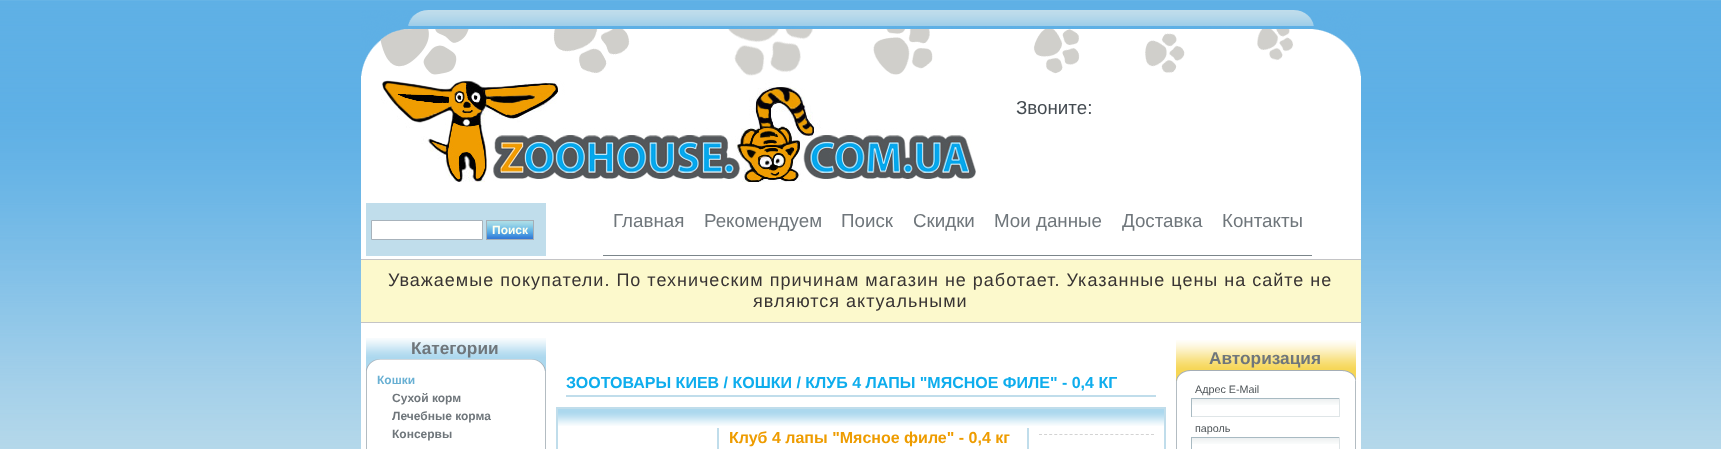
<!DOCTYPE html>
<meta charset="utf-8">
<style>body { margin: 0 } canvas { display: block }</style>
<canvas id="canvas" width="1721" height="449"></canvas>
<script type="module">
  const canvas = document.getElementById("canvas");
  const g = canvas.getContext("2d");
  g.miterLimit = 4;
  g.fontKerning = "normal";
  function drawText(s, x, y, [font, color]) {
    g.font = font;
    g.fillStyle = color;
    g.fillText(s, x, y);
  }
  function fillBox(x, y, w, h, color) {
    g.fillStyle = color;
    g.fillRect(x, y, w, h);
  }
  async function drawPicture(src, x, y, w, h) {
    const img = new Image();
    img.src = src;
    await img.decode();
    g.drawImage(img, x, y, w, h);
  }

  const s1 = ["18.75px Liberation Sans", "#444B51"];
  const s2 = ["bold 12px Liberation Sans", "#FFFFF0"];
  const s3 = ["18.75px Liberation Sans", "#6F767B"];
  const s4 = ["18px Liberation Sans", "#383433"];
  const s5 = ["bold 17.25px Liberation Sans", "#6F767B"];
  const s6 = ["bold 12px Liberation Sans", "#69B0D3"];
  const s7 = ["bold 12px Liberation Sans", "#6F767B"];
  const s8 = ["bold 16px Liberation Sans", "#0EADED"];
  const s9 = ["bold 16px Liberation Sans", "#EE9C00"];
  const s10 = ["10.75px Liberation Sans", "#4F5559"];

  fillBox(0, 0, 1721, 449, "#FFFFFF");
  await drawPicture("pic1.png", 0, 0, 1721, 449);
  fillBox(361, 76, 1000, 373, "#FFFFFF");
  await drawPicture("pic2.png", 361, 10, 1000, 66);
  await drawPicture("pic3.png", 381, 80, 595, 102);
  drawText("Звоните:", 1016, 114, s1);
  fillBox(366, 203, 180, 53, "#C0DDEB");
  g.fillStyle = "#FFFFFF";
  g.beginPath();
  g.rect(371.5, 220.5, 111, 19);
  g.fill();
  g.strokeStyle = "#A7B2BB";
  g.stroke();
  await drawPicture("pic4.png", 487, 221, 46, 18);
  g.strokeStyle = "#A5AEB6";
  g.strokeRect(486.5, 220.5, 47, 19);
  drawText("Поиск", 492, 234, s2);
  fillBox(603, 255, 709, 1, "#7B858A");
  drawText("Главная", 613, 227, s3);
  drawText("Рекомендуем", 704, 227, s3);
  drawText("Поиск", 841, 227, s3);
  drawText("Скидки", 913, 227, s3);
  drawText("Мои данные", 994, 227, s3);
  drawText("Доставка", 1122, 227, s3);
  drawText("Контакты", 1222, 227, s3);
  fillBox(361, 260, 1000, 62, "#FCF9CC");
  fillBox(361, 259, 1000, 1, "#C4C4C6");
  fillBox(361, 322, 1000, 1, "#C4C4C6");
  g.letterSpacing = "1px";
  drawText("Уважаемые покупатели. По техническим причинам магазин не работает. Указанные цены на сайте не", 388, 286, s4);
  drawText("являются актуальными", 753, 307, s4);
  await drawPicture("pic5.png", 366, 338, 180, 33);
  g.letterSpacing = "0px";
  drawText("Категории", 411, 354, s5);
  fillBox(545, 371, 1, 78, "#B3BCC2");
  fillBox(366, 371, 1, 78, "#B3BCC2");
  drawText("Кошки", 377, 384, s6);
  drawText("Сухой корм", 392, 402, s7);
  drawText("Лечебные корма", 392, 420, s7);
  drawText("Консервы", 392, 438, s7);
  fillBox(566, 395, 590, 2, "#C0DDEB");
  drawText("ЗООТОВАРЫ КИЕВ / КОШКИ / КЛУБ 4 ЛАПЫ \"МЯСНОЕ ФИЛЕ\" - 0,4 КГ", 566, 388, s8);
  await drawPicture("pic6.png", 558, 409, 606, 17);
  g.strokeStyle = "#C0DDEB";
  g.lineWidth = 2;
  g.strokeRect(557, 408, 608, 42);
  fillBox(1027, 428, 2, 21, "#C0DDEB");
  fillBox(717, 428, 2, 21, "#C0DDEB");
  drawText("Клуб 4 лапы \"Мясное филе\" - 0,4 кг", 729, 443, s9);
  g.beginPath();
  g.moveTo(1039, 434.5);
  g.lineTo(1154, 434.5);
  g.strokeStyle = "#D3D3D3";
  g.lineWidth = 1;
  g.setLineDash([3, 2.09]);
  g.stroke();
  await drawPicture("pic7.png", 1176, 340, 180, 41);
  drawText("Авторизация", 1209, 364, s5);
  fillBox(1355, 381, 1, 68, "#B3BCC2");
  fillBox(1176, 381, 1, 68, "#B3BCC2");
  drawText("Адрес E-Mail", 1195, 393, s10);
  await drawPicture("pic8.png", 1192, 399, 147, 6);
  fillBox(1191, 398, 149, 1, "#A8BAC2");
  fillBox(1339, 398, 1, 19, "#DFE5E7");
  fillBox(1191, 416, 149, 1, "#DFE5E7");
  fillBox(1191, 398, 1, 19, "#A8BAC2");
  drawText("пароль", 1195, 432, s10);
  await drawPicture("pic8.png", 1192, 438, 147, 6);
  fillBox(1191, 437, 149, 1, "#A8BAC2");
  fillBox(1339, 437, 1, 12, "#DFE5E7");
  fillBox(1191, 437, 1, 12, "#A8BAC2");
</script>
